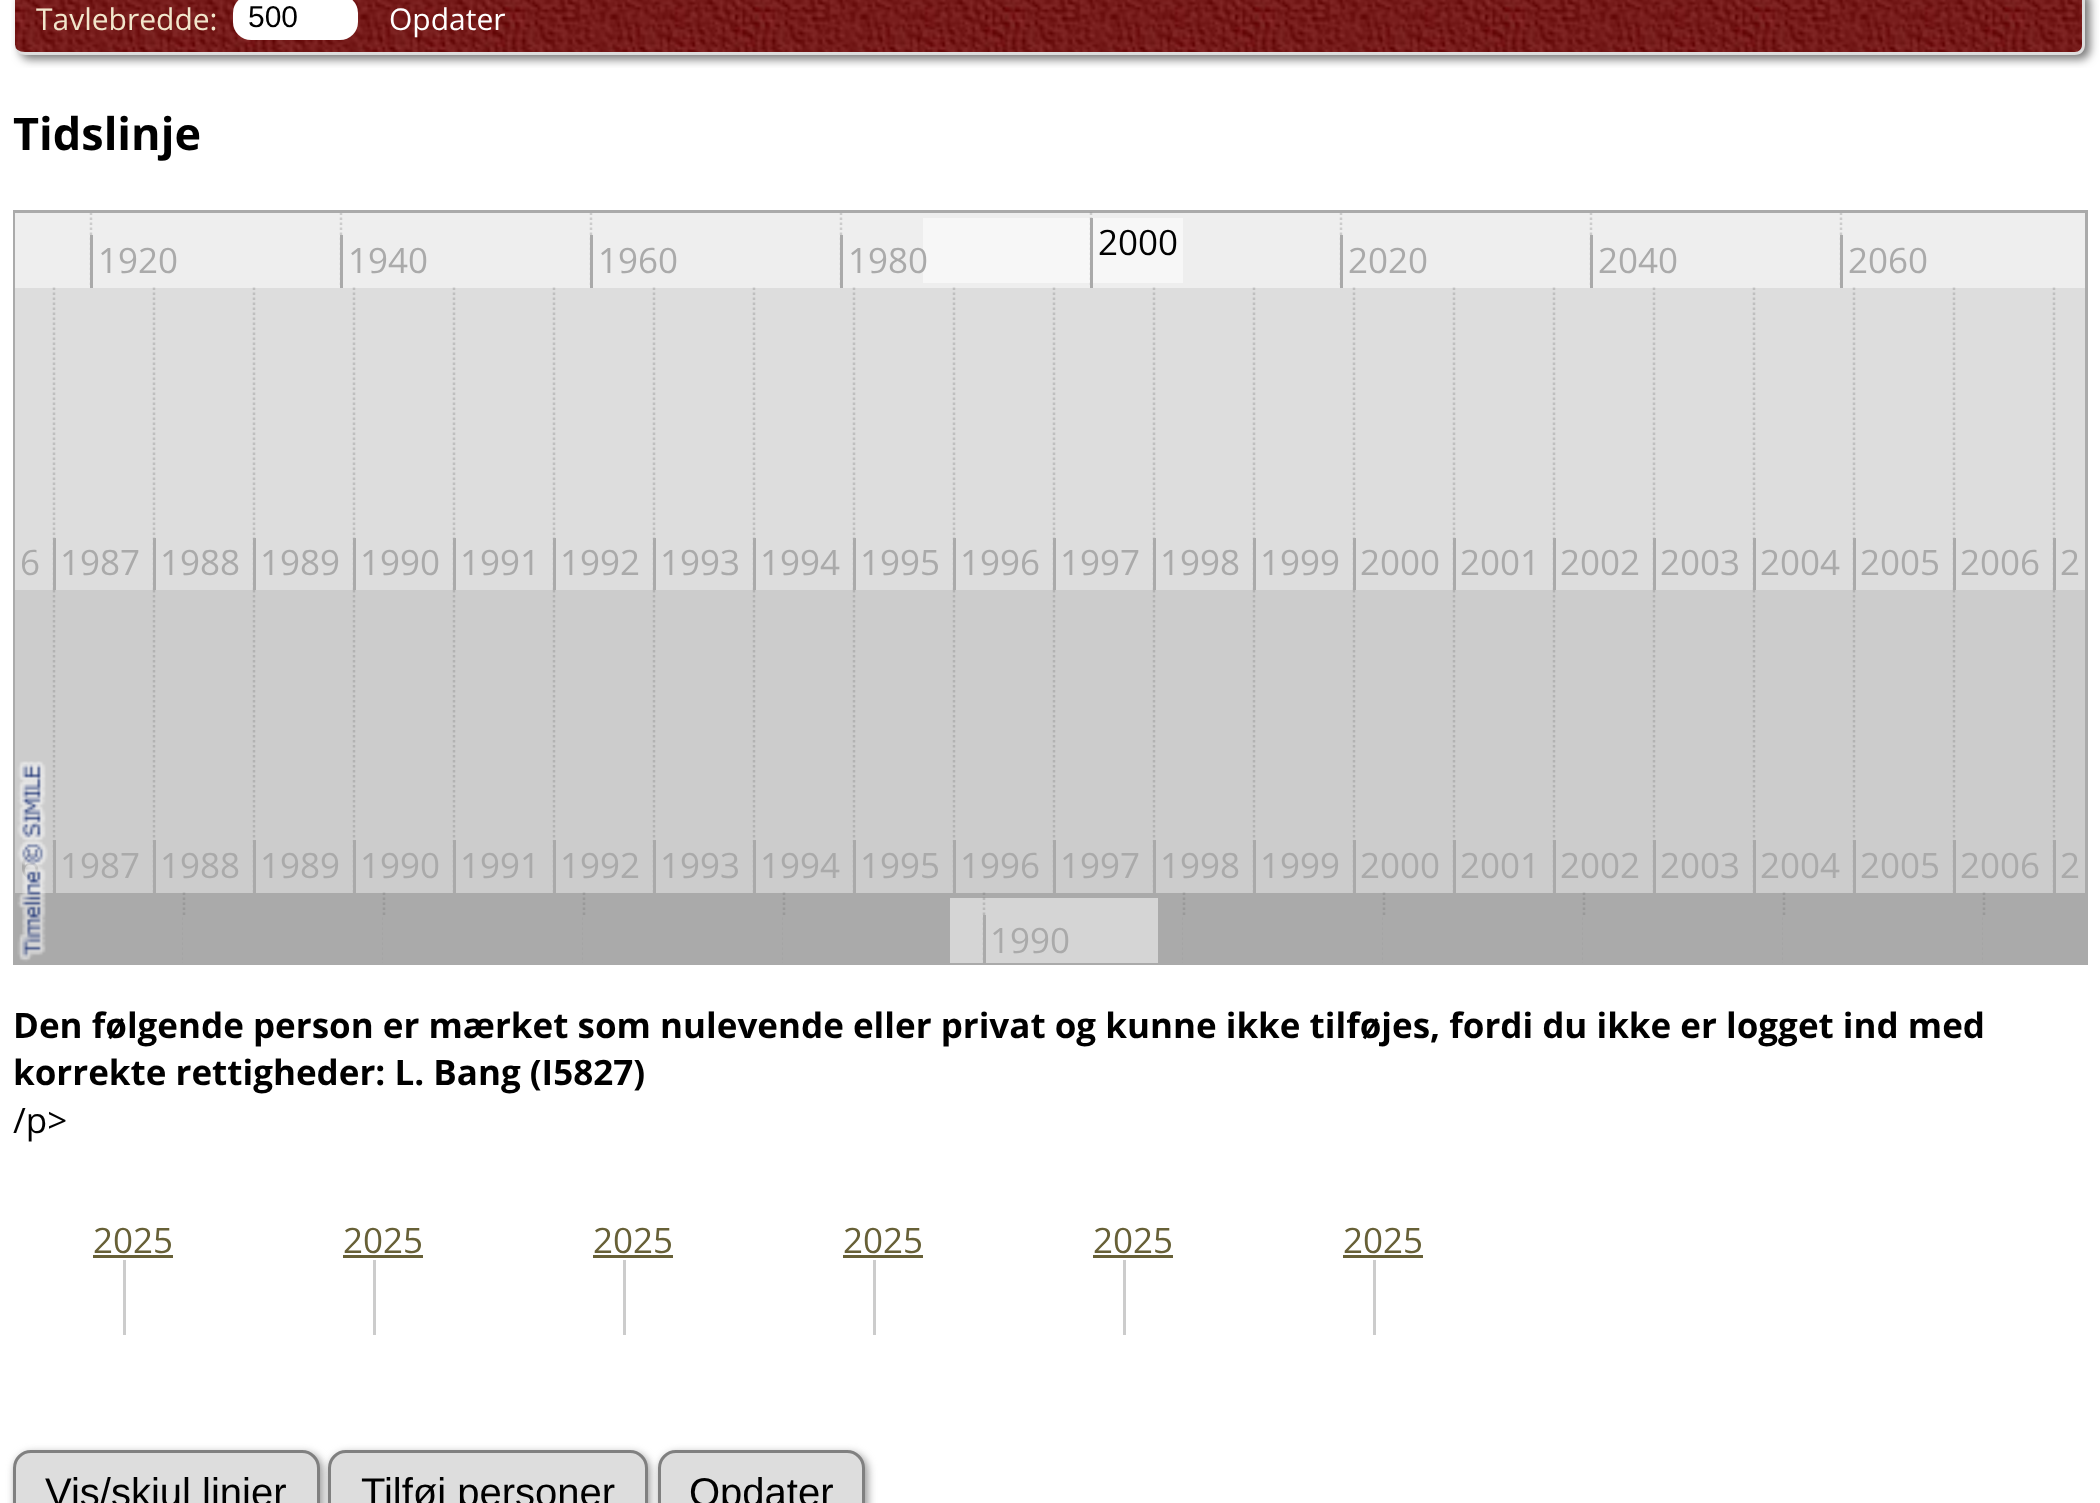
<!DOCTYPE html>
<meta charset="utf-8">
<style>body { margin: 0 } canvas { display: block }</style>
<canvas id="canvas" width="2100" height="1503"></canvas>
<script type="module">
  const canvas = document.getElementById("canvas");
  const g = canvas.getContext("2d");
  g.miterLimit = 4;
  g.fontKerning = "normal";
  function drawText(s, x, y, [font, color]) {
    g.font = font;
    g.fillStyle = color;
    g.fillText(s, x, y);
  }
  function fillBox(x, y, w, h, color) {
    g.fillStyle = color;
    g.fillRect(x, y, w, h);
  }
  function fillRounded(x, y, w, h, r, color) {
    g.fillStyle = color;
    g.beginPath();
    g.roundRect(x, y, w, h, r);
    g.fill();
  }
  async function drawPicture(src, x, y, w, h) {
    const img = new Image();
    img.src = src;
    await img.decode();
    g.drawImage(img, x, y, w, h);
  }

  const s1 = ["30px Open Sans", "#F2E6CC"];
  const s2 = ["30px Liberation Sans", "#000000"];
  const s3 = ["30px Open Sans", "#FFFFFF"];
  const s4 = ["bold 45px Open Sans", "#000000"];
  const s5 = ["35px Open Sans", "#000000"];
  const s6 = ["35px Open Sans", "#AAAAAA"];
  const s7 = ["bold 35px Open Sans", "#000000"];
  const s8 = ["35px Open Sans", "#676037"];
  const s9 = ["40px Liberation Sans", "#000000"];

  fillBox(0, 0, 2100, 1503, "#FFFFFF");
  await drawPicture("pic1.png", 11, 0, 2088, 68);
  g.fillStyle = "#DDDDDD";
  g.beginPath();
  g.moveTo(25, -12);
  g.lineTo(2075, -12);
  g.bezierCurveTo(2081, -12, 2085, -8, 2085, -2);
  g.lineTo(2085, 45);
  g.bezierCurveTo(2085, 51, 2081, 55, 2075, 55);
  g.lineTo(25, 55);
  g.bezierCurveTo(19, 55, 15, 51, 15, 45);
  g.lineTo(15, -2);
  g.bezierCurveTo(15, -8, 19, -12, 25, -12);
  g.closePath();
  g.moveTo(25, -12);
  g.lineTo(2075, -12);
  g.bezierCurveTo(2079, -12, 2082, -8, 2082, -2);
  g.lineTo(2082, 45);
  g.bezierCurveTo(2082, 49, 2079, 52, 2075, 52);
  g.lineTo(25, 52);
  g.bezierCurveTo(19, 52, 15, 49, 15, 45);
  g.lineTo(15, -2);
  g.bezierCurveTo(15, -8, 19, -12, 25, -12);
  g.closePath();
  g.fill("evenodd");
  drawText("Tavlebredde:", 36, 30, s1);
  fillRounded(233, -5, 125, 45, 18, "#FFFFFF");
  drawText("500", 248, 27, s2);
  drawText("Opdater", 389, 30, s3);
  drawText("Tidslinje", 13, 150, s4);
  g.strokeStyle = "#AAAAAA";
  g.lineWidth = 3;
  g.strokeRect(14.5, 211.5, 2072, 752);
  fillBox(15, 213, 2070, 75, "#EEEEEE");
  g.save();
  g.beginPath();
  g.rect(15, 213, 2070, 750);
  g.clip();
  g.beginPath();
  g.moveTo(91, 212.5);
  g.lineTo(91, 287.5);
  g.strokeStyle = "#CCCCCC";
  g.lineWidth = 2.5;
  g.setLineDash([2.5, 2.5]);
  g.stroke();
  g.beginPath();
  g.moveTo(341, 212.5);
  g.lineTo(341, 287.5);
  g.stroke();
  g.beginPath();
  g.moveTo(591, 212.5);
  g.lineTo(591, 287.5);
  g.stroke();
  g.beginPath();
  g.moveTo(841, 212.5);
  g.lineTo(841, 287.5);
  g.stroke();
  g.restore();
  fillBox(923, 218, 260, 65, "#F7F7F7");
  g.beginPath();
  g.moveTo(1091, 212.5);
  g.lineTo(1091, 287.5);
  g.strokeStyle = "rgba(102, 102, 102, 0.25)";
  g.lineWidth = 2.5;
  g.setLineDash([2.5, 2.5]);
  g.stroke();
  g.save();
  g.beginPath();
  g.rect(15, 213, 2070, 750);
  g.clip();
  g.beginPath();
  g.moveTo(1341, 212.5);
  g.lineTo(1341, 287.5);
  g.strokeStyle = "#CCCCCC";
  g.stroke();
  g.beginPath();
  g.moveTo(1591, 212.5);
  g.lineTo(1591, 287.5);
  g.stroke();
  g.beginPath();
  g.moveTo(1841, 212.5);
  g.lineTo(1841, 287.5);
  g.stroke();
  g.restore();
  fillBox(1090, 218, 3, 70, "#AAAAAA");
  drawText("2000", 1098, 255, s5);
  fillBox(90, 235, 3, 53, "#AAAAAA");
  drawText("1920", 98, 273, s6);
  fillBox(340, 235, 3, 53, "#AAAAAA");
  drawText("1940", 348, 273, s6);
  fillBox(590, 235, 3, 53, "#AAAAAA");
  drawText("1960", 598, 273, s6);
  fillBox(840, 235, 3, 53, "#AAAAAA");
  drawText("1980", 848, 273, s6);
  fillBox(1340, 235, 3, 53, "#AAAAAA");
  drawText("2020", 1348, 273, s6);
  fillBox(1590, 235, 3, 53, "#AAAAAA");
  drawText("2040", 1598, 273, s6);
  fillBox(1840, 235, 3, 53, "#AAAAAA");
  drawText("2060", 1848, 273, s6);
  fillBox(15, 288, 2070, 302, "#DDDDDD");
  g.beginPath();
  g.moveTo(54, 287.5);
  g.lineTo(54, 590);
  g.stroke();
  g.beginPath();
  g.moveTo(154, 287.5);
  g.lineTo(154, 590);
  g.stroke();
  g.beginPath();
  g.moveTo(254, 287.5);
  g.lineTo(254, 590);
  g.stroke();
  g.beginPath();
  g.moveTo(354, 287.5);
  g.lineTo(354, 590);
  g.stroke();
  g.beginPath();
  g.moveTo(454, 287.5);
  g.lineTo(454, 590);
  g.stroke();
  g.beginPath();
  g.moveTo(554, 287.5);
  g.lineTo(554, 590);
  g.stroke();
  g.beginPath();
  g.moveTo(654, 287.5);
  g.lineTo(654, 590);
  g.stroke();
  g.beginPath();
  g.moveTo(754, 287.5);
  g.lineTo(754, 590);
  g.stroke();
  g.beginPath();
  g.moveTo(854, 287.5);
  g.lineTo(854, 590);
  g.stroke();
  g.beginPath();
  g.moveTo(954, 287.5);
  g.lineTo(954, 590);
  g.stroke();
  g.beginPath();
  g.moveTo(1054, 287.5);
  g.lineTo(1054, 590);
  g.stroke();
  g.beginPath();
  g.moveTo(1154, 287.5);
  g.lineTo(1154, 590);
  g.stroke();
  g.beginPath();
  g.moveTo(1254, 287.5);
  g.lineTo(1254, 590);
  g.stroke();
  g.beginPath();
  g.moveTo(1354, 287.5);
  g.lineTo(1354, 590);
  g.stroke();
  g.beginPath();
  g.moveTo(1454, 287.5);
  g.lineTo(1454, 590);
  g.stroke();
  g.beginPath();
  g.moveTo(1554, 287.5);
  g.lineTo(1554, 590);
  g.stroke();
  g.beginPath();
  g.moveTo(1654, 287.5);
  g.lineTo(1654, 590);
  g.stroke();
  g.beginPath();
  g.moveTo(1754, 287.5);
  g.lineTo(1754, 590);
  g.stroke();
  g.beginPath();
  g.moveTo(1854, 287.5);
  g.lineTo(1854, 590);
  g.stroke();
  g.beginPath();
  g.moveTo(1954, 287.5);
  g.lineTo(1954, 590);
  g.stroke();
  g.beginPath();
  g.moveTo(2054, 287.5);
  g.lineTo(2054, 590);
  g.stroke();
  drawText("6", 20, 575, s6);
  fillBox(53, 538, 3, 52, "#AAAAAA");
  drawText("1987", 60, 575, s6);
  fillBox(153, 538, 3, 52, "#AAAAAA");
  drawText("1988", 160, 575, s6);
  fillBox(253, 538, 3, 52, "#AAAAAA");
  drawText("1989", 260, 575, s6);
  fillBox(353, 538, 3, 52, "#AAAAAA");
  drawText("1990", 360, 575, s6);
  fillBox(453, 538, 3, 52, "#AAAAAA");
  drawText("1991", 460, 575, s6);
  fillBox(553, 538, 3, 52, "#AAAAAA");
  drawText("1992", 560, 575, s6);
  fillBox(653, 538, 3, 52, "#AAAAAA");
  drawText("1993", 660, 575, s6);
  fillBox(753, 538, 3, 52, "#AAAAAA");
  drawText("1994", 760, 575, s6);
  fillBox(853, 538, 3, 52, "#AAAAAA");
  drawText("1995", 860, 575, s6);
  fillBox(953, 538, 3, 52, "#AAAAAA");
  drawText("1996", 960, 575, s6);
  fillBox(1053, 538, 3, 52, "#AAAAAA");
  drawText("1997", 1060, 575, s6);
  fillBox(1153, 538, 3, 52, "#AAAAAA");
  drawText("1998", 1160, 575, s6);
  fillBox(1253, 538, 3, 52, "#AAAAAA");
  drawText("1999", 1260, 575, s6);
  fillBox(1353, 538, 3, 52, "#AAAAAA");
  drawText("2000", 1360, 575, s6);
  fillBox(1453, 538, 3, 52, "#AAAAAA");
  drawText("2001", 1460, 575, s6);
  fillBox(1553, 538, 3, 52, "#AAAAAA");
  drawText("2002", 1560, 575, s6);
  fillBox(1653, 538, 3, 52, "#AAAAAA");
  drawText("2003", 1660, 575, s6);
  fillBox(1753, 538, 3, 52, "#AAAAAA");
  drawText("2004", 1760, 575, s6);
  fillBox(1853, 538, 3, 52, "#AAAAAA");
  drawText("2005", 1860, 575, s6);
  fillBox(1953, 538, 3, 52, "#AAAAAA");
  drawText("2006", 1960, 575, s6);
  fillBox(2053, 538, 3, 52, "#AAAAAA");
  drawText("2", 2060, 575, s6);
  fillBox(15, 590, 2070, 303, "#CCCCCC");
  drawText("6", 20, 878, s6);
  fillBox(16, 893, 2069, 69, "#AAAAAA");
  await drawPicture("pic2.png", 17, 761, 31, 201);
  g.beginPath();
  g.moveTo(54, 590);
  g.lineTo(54, 892.5);
  g.strokeStyle = "#B3B3B3";
  g.stroke();
  g.beginPath();
  g.moveTo(154, 590);
  g.lineTo(154, 892.5);
  g.stroke();
  g.beginPath();
  g.moveTo(254, 590);
  g.lineTo(254, 892.5);
  g.stroke();
  g.beginPath();
  g.moveTo(354, 590);
  g.lineTo(354, 892.5);
  g.stroke();
  g.beginPath();
  g.moveTo(454, 590);
  g.lineTo(454, 892.5);
  g.stroke();
  g.beginPath();
  g.moveTo(554, 590);
  g.lineTo(554, 892.5);
  g.stroke();
  g.beginPath();
  g.moveTo(654, 590);
  g.lineTo(654, 892.5);
  g.stroke();
  g.beginPath();
  g.moveTo(754, 590);
  g.lineTo(754, 892.5);
  g.stroke();
  g.beginPath();
  g.moveTo(854, 590);
  g.lineTo(854, 892.5);
  g.stroke();
  g.beginPath();
  g.moveTo(954, 590);
  g.lineTo(954, 892.5);
  g.stroke();
  g.beginPath();
  g.moveTo(1054, 590);
  g.lineTo(1054, 892.5);
  g.stroke();
  g.beginPath();
  g.moveTo(1154, 590);
  g.lineTo(1154, 892.5);
  g.stroke();
  g.beginPath();
  g.moveTo(1254, 590);
  g.lineTo(1254, 892.5);
  g.stroke();
  g.beginPath();
  g.moveTo(1354, 590);
  g.lineTo(1354, 892.5);
  g.stroke();
  g.beginPath();
  g.moveTo(1454, 590);
  g.lineTo(1454, 892.5);
  g.stroke();
  g.beginPath();
  g.moveTo(1554, 590);
  g.lineTo(1554, 892.5);
  g.stroke();
  g.beginPath();
  g.moveTo(1654, 590);
  g.lineTo(1654, 892.5);
  g.stroke();
  g.beginPath();
  g.moveTo(1754, 590);
  g.lineTo(1754, 892.5);
  g.stroke();
  g.beginPath();
  g.moveTo(1854, 590);
  g.lineTo(1854, 892.5);
  g.stroke();
  g.beginPath();
  g.moveTo(1954, 590);
  g.lineTo(1954, 892.5);
  g.stroke();
  g.beginPath();
  g.moveTo(2054, 590);
  g.lineTo(2054, 892.5);
  g.stroke();
  fillBox(53, 840, 3, 53, "#AAAAAA");
  drawText("1987", 60, 878, s6);
  fillBox(153, 840, 3, 53, "#AAAAAA");
  drawText("1988", 160, 878, s6);
  fillBox(253, 840, 3, 53, "#AAAAAA");
  drawText("1989", 260, 878, s6);
  fillBox(353, 840, 3, 53, "#AAAAAA");
  drawText("1990", 360, 878, s6);
  fillBox(453, 840, 3, 53, "#AAAAAA");
  drawText("1991", 460, 878, s6);
  fillBox(553, 840, 3, 53, "#AAAAAA");
  drawText("1992", 560, 878, s6);
  fillBox(653, 840, 3, 53, "#AAAAAA");
  drawText("1993", 660, 878, s6);
  fillBox(753, 840, 3, 53, "#AAAAAA");
  drawText("1994", 760, 878, s6);
  fillBox(853, 840, 3, 53, "#AAAAAA");
  drawText("1995", 860, 878, s6);
  fillBox(953, 840, 3, 53, "#AAAAAA");
  drawText("1996", 960, 878, s6);
  fillBox(1053, 840, 3, 53, "#AAAAAA");
  drawText("1997", 1060, 878, s6);
  fillBox(1153, 840, 3, 53, "#AAAAAA");
  drawText("1998", 1160, 878, s6);
  fillBox(1253, 840, 3, 53, "#AAAAAA");
  drawText("1999", 1260, 878, s6);
  fillBox(1353, 840, 3, 53, "#AAAAAA");
  drawText("2000", 1360, 878, s6);
  fillBox(1453, 840, 3, 53, "#AAAAAA");
  drawText("2001", 1460, 878, s6);
  fillBox(1553, 840, 3, 53, "#AAAAAA");
  drawText("2002", 1560, 878, s6);
  fillBox(1653, 840, 3, 53, "#AAAAAA");
  drawText("2003", 1660, 878, s6);
  fillBox(1753, 840, 3, 53, "#AAAAAA");
  drawText("2004", 1760, 878, s6);
  fillBox(1853, 840, 3, 53, "#AAAAAA");
  drawText("2005", 1860, 878, s6);
  fillBox(1953, 840, 3, 53, "#AAAAAA");
  drawText("2006", 1960, 878, s6);
  fillBox(2053, 840, 3, 53, "#AAAAAA");
  drawText("2", 2060, 878, s6);
  g.save();
  g.beginPath();
  g.rect(15, 213, 2070, 750);
  g.clip();
  g.beginPath();
  g.moveTo(184, 892.5);
  g.lineTo(184, 967.5);
  g.strokeStyle = "rgba(102, 102, 102, 0.25)";
  g.stroke();
  g.beginPath();
  g.moveTo(384, 892.5);
  g.lineTo(384, 967.5);
  g.stroke();
  g.beginPath();
  g.moveTo(584, 892.5);
  g.lineTo(584, 967.5);
  g.stroke();
  g.beginPath();
  g.moveTo(784, 892.5);
  g.lineTo(784, 967.5);
  g.stroke();
  g.restore();
  fillBox(950, 898, 208, 65, "#D5D5D5");
  g.save();
  g.beginPath();
  g.rect(15, 213, 2070, 750);
  g.clip();
  g.beginPath();
  g.moveTo(984, 892.5);
  g.lineTo(984, 967.5);
  g.strokeStyle = "rgba(102, 102, 102, 0.25)";
  g.stroke();
  g.beginPath();
  g.moveTo(1184, 892.5);
  g.lineTo(1184, 967.5);
  g.stroke();
  g.beginPath();
  g.moveTo(1384, 892.5);
  g.lineTo(1384, 967.5);
  g.stroke();
  g.beginPath();
  g.moveTo(1584, 892.5);
  g.lineTo(1584, 967.5);
  g.stroke();
  g.beginPath();
  g.moveTo(1784, 892.5);
  g.lineTo(1784, 967.5);
  g.stroke();
  g.beginPath();
  g.moveTo(1984, 892.5);
  g.lineTo(1984, 967.5);
  g.stroke();
  g.restore();
  fillBox(183, 915, 3, 48, "#AAAAAA");
  fillBox(383, 915, 3, 48, "#AAAAAA");
  fillBox(583, 915, 3, 48, "#AAAAAA");
  fillBox(783, 915, 3, 48, "#AAAAAA");
  fillBox(983, 915, 3, 48, "#AAAAAA");
  drawText("1990", 990, 953, s6);
  fillBox(1183, 915, 3, 48, "#AAAAAA");
  fillBox(1383, 915, 3, 48, "#AAAAAA");
  fillBox(1583, 915, 3, 48, "#AAAAAA");
  fillBox(1783, 915, 3, 48, "#AAAAAA");
  fillBox(1983, 915, 3, 48, "#AAAAAA");
  drawText("Den følgende person er mærket som nulevende eller privat og kunne ikke tilføjes, fordi du ikke er logget ind med", 13, 1038, s7);
  drawText("korrekte rettigheder: L. Bang (I5827)", 13, 1085, s7);
  drawText("/p>", 13, 1133, s5);
  drawText("2025", 93, 1253, s8);
  fillBox(93, 1255, 80, 3, "#676037");
  drawText("2025", 343, 1253, s8);
  fillBox(343, 1255, 80, 3, "#676037");
  drawText("2025", 593, 1253, s8);
  fillBox(593, 1255, 80, 3, "#676037");
  drawText("2025", 843, 1253, s8);
  fillBox(843, 1255, 80, 3, "#676037");
  drawText("2025", 1093, 1253, s8);
  fillBox(1093, 1255, 80, 3, "#676037");
  drawText("2025", 1343, 1253, s8);
  fillBox(1343, 1255, 80, 3, "#676037");
  fillBox(123, 1260, 3, 75, "#CCCCCC");
  fillBox(373, 1260, 3, 75, "#CCCCCC");
  fillBox(623, 1260, 3, 75, "#CCCCCC");
  fillBox(873, 1260, 3, 75, "#CCCCCC");
  fillBox(1123, 1260, 3, 75, "#CCCCCC");
  fillBox(1373, 1260, 3, 75, "#CCCCCC");
  g.fillStyle = "#999999";
  g.filter = "blur(4px)";
  g.beginPath();
  g.roundRect(15, 1453, 308, 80, 18);
  g.fill();
  g.filter = "none";
  g.fillStyle = "#DDDDDD";
  g.beginPath();
  g.roundRect(14.5, 1451.5, 304, 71, 16.5);
  g.fill();
  g.strokeStyle = "#808080";
  g.lineWidth = 3;
  g.setLineDash([]);
  g.stroke();
  drawText("Vis/skjul linjer", 45, 1506, s9);
  g.fillStyle = "#999999";
  g.filter = "blur(4px)";
  g.beginPath();
  g.roundRect(330, 1453, 320, 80, 18);
  g.fill();
  g.filter = "none";
  g.fillStyle = "#DDDDDD";
  g.beginPath();
  g.roundRect(329.5, 1451.5, 317, 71, 16.5);
  g.fill();
  g.stroke();
  drawText("Tilføj personer", 361, 1506, s9);
  g.fillStyle = "#999999";
  g.filter = "blur(4px)";
  g.beginPath();
  g.roundRect(660, 1453, 208, 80, 18);
  g.fill();
  g.filter = "none";
  g.fillStyle = "#DDDDDD";
  g.beginPath();
  g.roundRect(659.5, 1451.5, 204, 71, 16.5);
  g.fill();
  g.stroke();
  drawText("Opdater", 689, 1506, s9);
</script>
